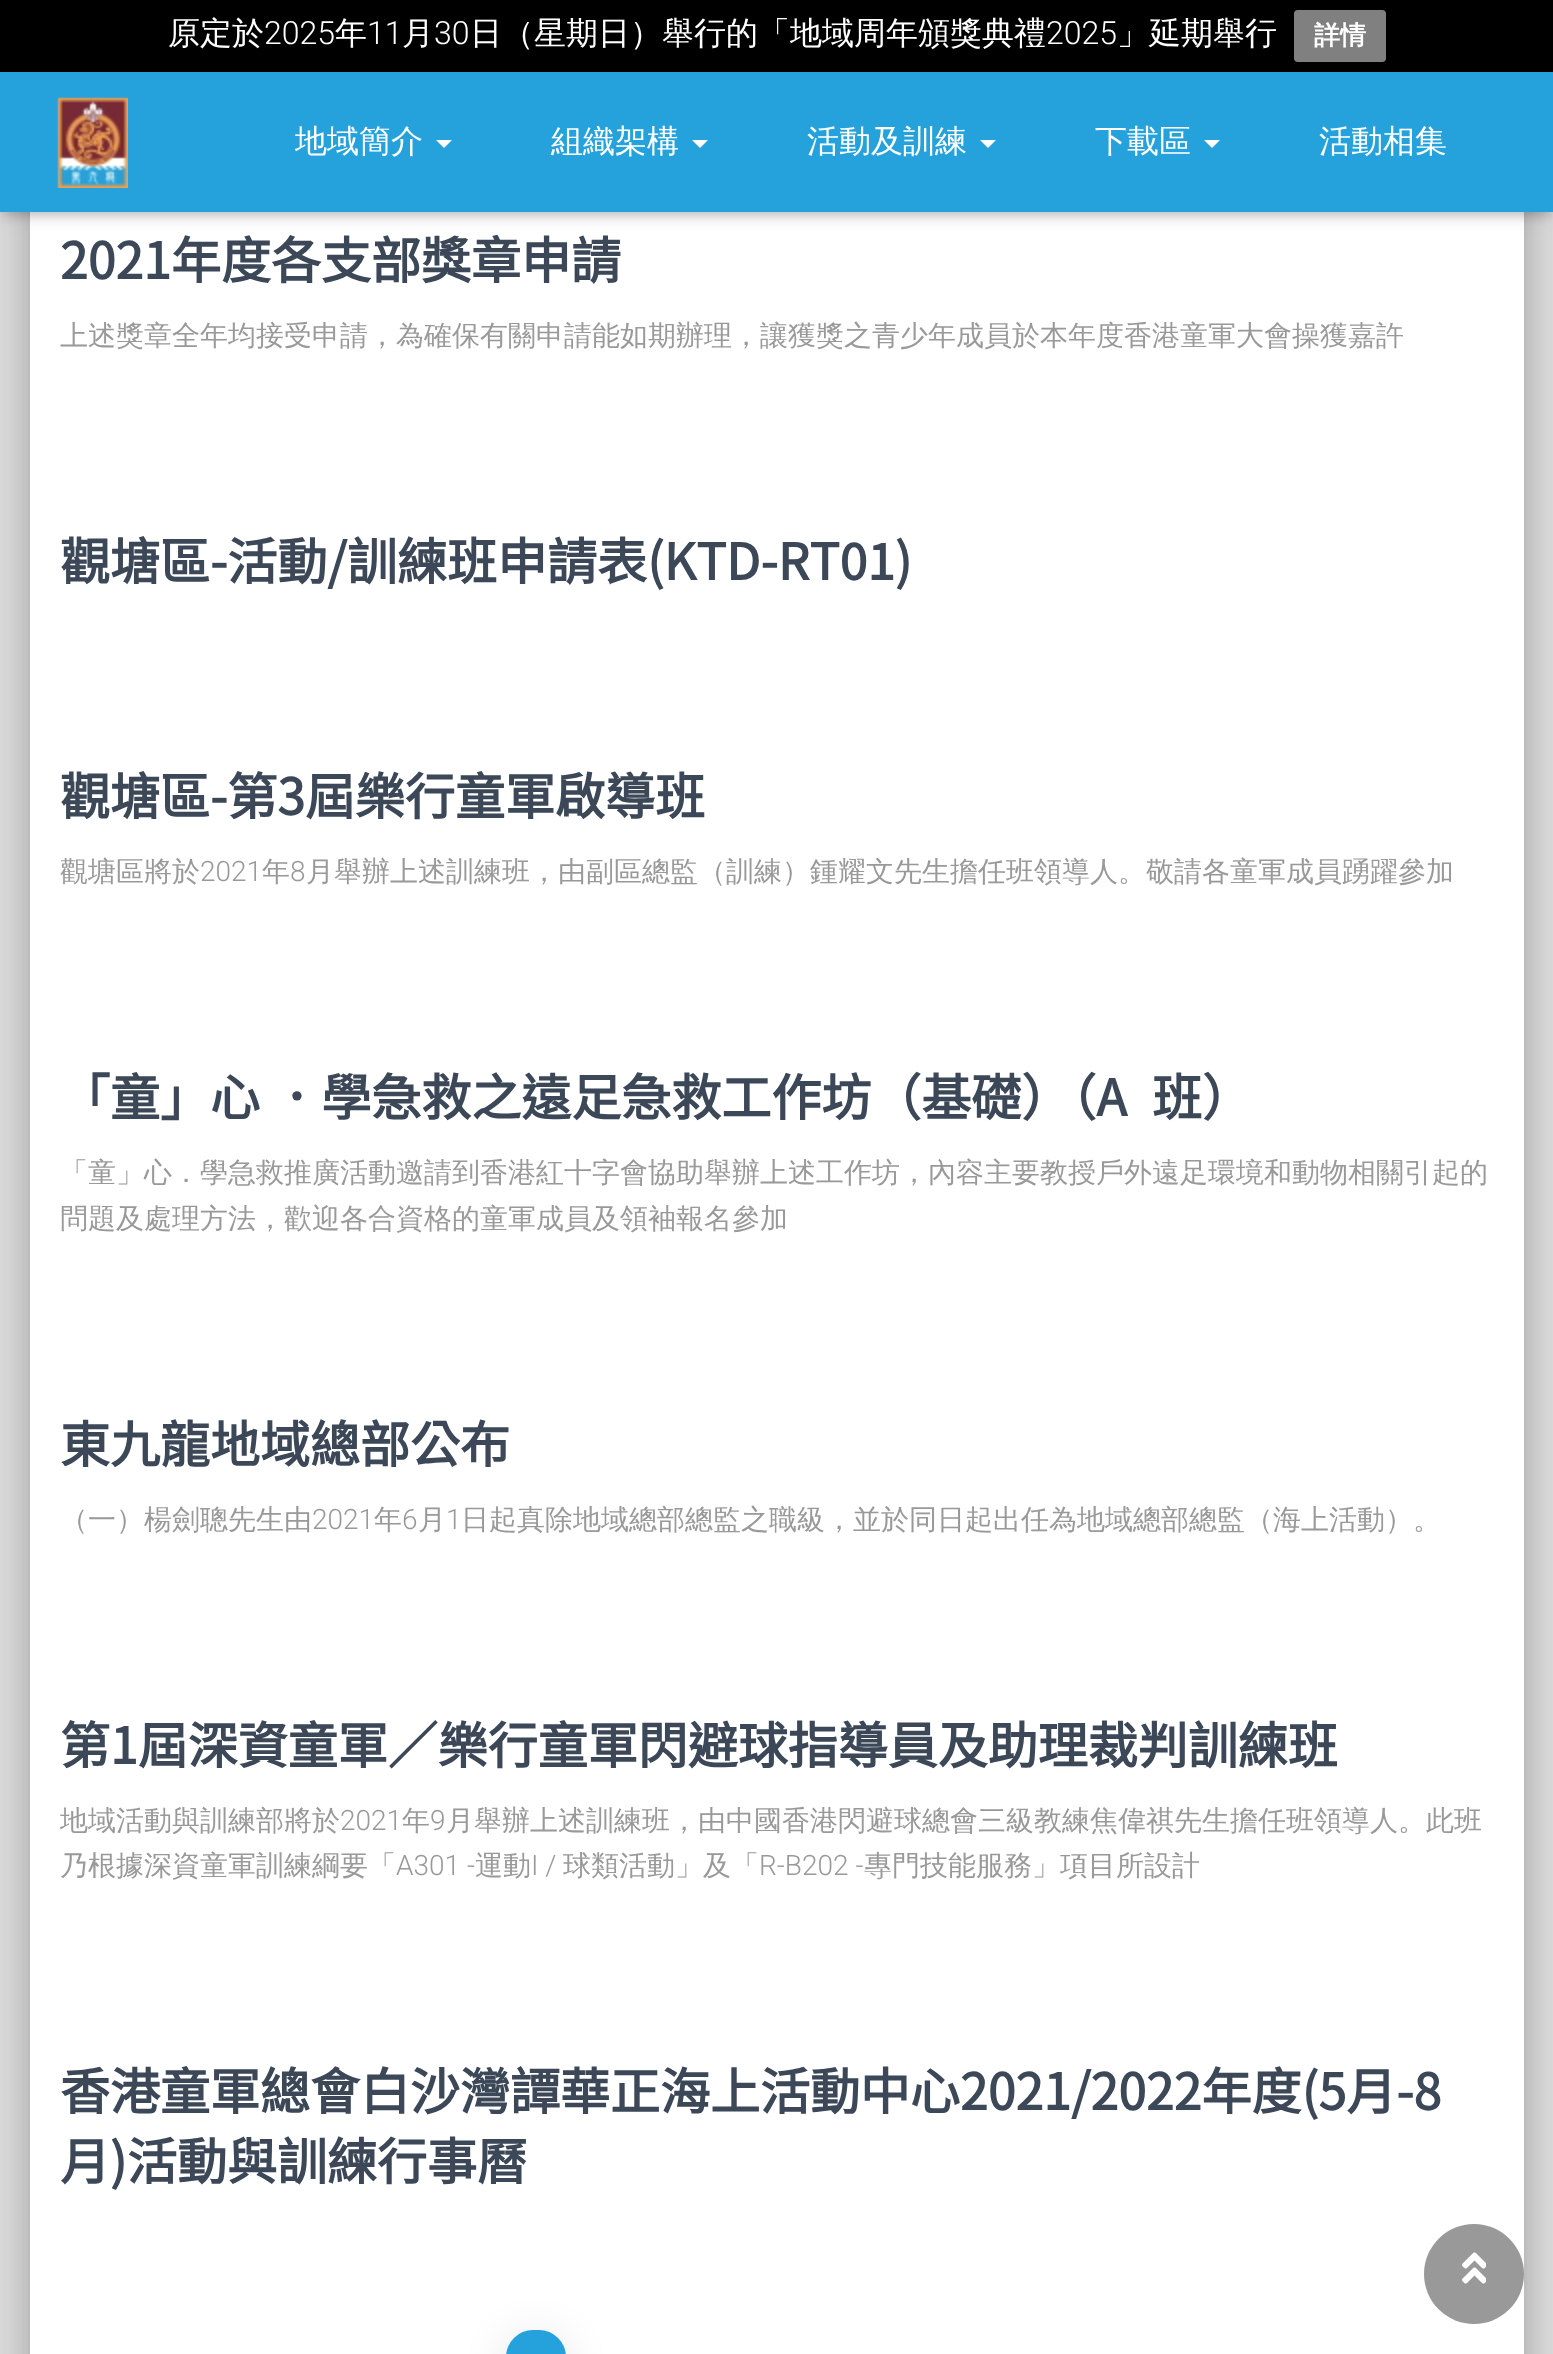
<!DOCTYPE html>
<meta charset="utf-8">
<style>body { margin: 0 } canvas { display: block }</style>
<canvas id="canvas" width="1553" height="2354"></canvas>
<script type="module">
  const canvas = document.getElementById("canvas");
  const g = canvas.getContext("2d");
  g.miterLimit = 4;
  g.fontKerning = "none";
  function drawText(s, x, y, [font, color]) {
    g.font = font;
    g.fillStyle = color;
    g.fillText(s, x, y);
  }
  function fillBox(x, y, w, h, color) {
    g.fillStyle = color;
    g.fillRect(x, y, w, h);
  }
  function fillRounded(x, y, w, h, r, color) {
    g.fillStyle = color;
    g.beginPath();
    g.roundRect(x, y, w, h, r);
    g.fill();
  }
  async function drawPicture(src, x, y, w, h) {
    const img = new Image();
    img.src = src;
    await img.decode();
    g.drawImage(img, x, y, w, h);
  }

  const s1 = ["500 32px WenQuanYi Zen Hei", "#FFFFFF"];
  const s2 = ["300 32px Roboto", "#FFFFFF"];
  const s3 = ["bold 26px WenQuanYi Zen Hei", "#FFFFFF"];
  const s4 = ["bold 50px Noto Sans TC", "#3C4858"];
  const s5 = ["500 28px WenQuanYi Zen Hei", "#999999"];
  const s6 = ["300 28px Roboto", "#999999"];

  fillBox(0, 0, 1553, 2354, "#E5E5E5");
  g.fillStyle = "rgba(0, 0, 0, 0.2)";
  g.filter = "blur(10px)";
  g.beginPath();
  g.roundRect(40, -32, 1474, 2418, 2);
  g.fill();
  g.filter = "none";
  g.fillStyle = "rgba(0, 0, 0, 0.12)";
  g.filter = "blur(30px)";
  g.beginPath();
  g.roundRect(20, -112, 1514, 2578, 22);
  g.fill();
  g.filter = "none";
  g.fillStyle = "rgba(0, 0, 0, 0.14)";
  g.filter = "blur(24px)";
  g.beginPath();
  g.roundRect(26, -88, 1502, 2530, 16);
  g.fill();
  g.filter = "none";
  fillBox(30, 212, 1494, 2142, "#FFFFFF");
  g.fillStyle = "rgba(0, 0, 0, 0.1)";
  g.filter = "blur(5px)";
  g.beginPath();
  g.rect(4, 84, 1546, 132);
  g.fill();
  g.filter = "none";
  g.fillStyle = "rgba(0, 0, 0, 0.12)";
  g.filter = "blur(10px)";
  g.beginPath();
  g.rect(0, 74, 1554, 140);
  g.fill();
  g.filter = "none";
  g.fillStyle = "rgba(0, 0, 0, 0.42)";
  g.filter = "blur(10px)";
  g.beginPath();
  g.rect(12, 86, 1530, 116);
  g.fill();
  g.filter = "none";
  fillBox(0, 0, 1553, 72, "#000000");
  drawText("原定於", 168, 44, s1);
  drawText("2025", 264, 44, s2);
  drawText("年", 335, 44, s1);
  drawText("11", 367, 44, s2);
  drawText("月", 402, 44, s1);
  drawText("30", 434, 44, s2);
  drawText("日（星期日）舉行的「地域周年頒獎典禮", 470, 44, s1);
  drawText("2025", 1046, 44, s2);
  drawText("」延期舉行", 1117, 44, s1);
  fillRounded(1294, 10, 92, 52, 4, "#808080");
  drawText("詳情", 1314, 44, s3);
  fillBox(0, 72, 1553, 140, "#25A2DC");
  await drawPicture("pic1.png", 57, 97, 71, 91);
  drawText("地域簡介", 295, 152, s1);
  g.beginPath();
  g.moveTo(436, 140);
  g.lineTo(452, 140);
  g.lineTo(444, 148);
  g.closePath();
  g.fill();
  drawText("組織架構", 551, 152, s1);
  g.beginPath();
  g.moveTo(692, 140);
  g.lineTo(708, 140);
  g.lineTo(700, 148);
  g.closePath();
  g.fill();
  drawText("活動及訓練", 807, 152, s1);
  g.beginPath();
  g.moveTo(980, 140);
  g.lineTo(996, 140);
  g.lineTo(988, 148);
  g.closePath();
  g.fill();
  drawText("下載區", 1095, 152, s1);
  g.beginPath();
  g.moveTo(1204, 140);
  g.lineTo(1220, 140);
  g.lineTo(1212, 148);
  g.closePath();
  g.fill();
  drawText("活動相集", 1319, 152, s1);
  drawText("2021年度各支部獎章申請", 60, 279, s4);
  drawText("上述獎章全年均接受申請，為確保有關申請能如期辦理，讓獲獎之青少年成員於本年度香港童軍大會操獲嘉許", 60, 345, s5);
  drawText("觀塘區-活動/訓練班申請表(KTD-RT01)", 60, 580, s4);
  drawText("觀塘區-第3屆樂行童軍啟導班", 60, 815, s4);
  drawText("觀塘區將於", 60, 881, s5);
  drawText("2021", 200, 881, s6);
  drawText("年", 262, 881, s5);
  drawText("8", 290, 881, s6);
  drawText("月舉辦上述訓練班，由副區總監（訓練）鍾耀文先生擔任班領導人。敬請各童軍成員踴躍參加", 306, 881, s5);
  drawText("「童」心 ．學急救之遠足急救工作坊（基礎）（A", 60, 1116, s4);
  drawText("班）", 1152, 1116, s4);
  drawText("「童」心．學急救推廣活動邀請到香港紅十字會協助舉辦上述工作坊，內容主要教授戶外遠足環境和動物相關引起的", 60, 1182, s5);
  drawText("問題及處理方法，歡迎各合資格的童軍成員及領袖報名參加", 60, 1228, s5);
  drawText("東九龍地域總部公布", 60, 1463, s4);
  drawText("（一）楊劍聰先生由", 60, 1529, s5);
  drawText("2021", 312, 1529, s6);
  drawText("年", 374, 1529, s5);
  drawText("6", 402, 1529, s6);
  drawText("月", 418, 1529, s5);
  drawText("1", 446, 1529, s6);
  drawText("日起真除地域總部總監之職級，並於同日起出任為地域總部總監（海上活動）。", 461, 1529, s5);
  drawText("第1屆深資童軍／樂行童軍閃避球指導員及助理裁判訓練班", 60, 1764, s4);
  drawText("地域活動與訓練部將於", 60, 1830, s5);
  drawText("2021", 340, 1830, s6);
  drawText("年", 402, 1830, s5);
  drawText("9", 430, 1830, s6);
  drawText("月舉辦上述訓練班，由中國香港閃避球總會三級教練焦偉祺先生擔任班領導人。此班", 446, 1830, s5);
  drawText("乃根據深資童軍訓練綱要「", 60, 1875, s5);
  drawText("A301 -", 396, 1875, s6);
  drawText("運動", 475, 1875, s5);
  drawText("I /", 531, 1875, s6);
  drawText("球類活動」及「", 563, 1875, s5);
  drawText("R-B202 -", 759, 1875, s6);
  drawText("專門技能服務」項目所設計", 864, 1875, s5);
  drawText("香港童軍總會白沙灣譚華正海上活動中心2021/2022年度(5月-8", 60, 2110, s4);
  drawText("月)活動與訓練行事曆", 60, 2180, s4);
  g.fillStyle = "rgba(0, 0, 0, 0.12)";
  g.filter = "blur(23px)";
  g.beginPath();
  g.roundRect(506, 2338, 60, 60, 30);
  g.fill();
  g.filter = "none";
  fillRounded(506, 2330, 60, 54, 30, "#25A2DC");
  g.fillStyle = "#999999";
  g.beginPath();
  g.arc(1474, 2274, 50, 0, Math.PI * 2);
  g.fill();
  await drawPicture("pic2.png", 1462, 2252, 24, 32);
</script>
